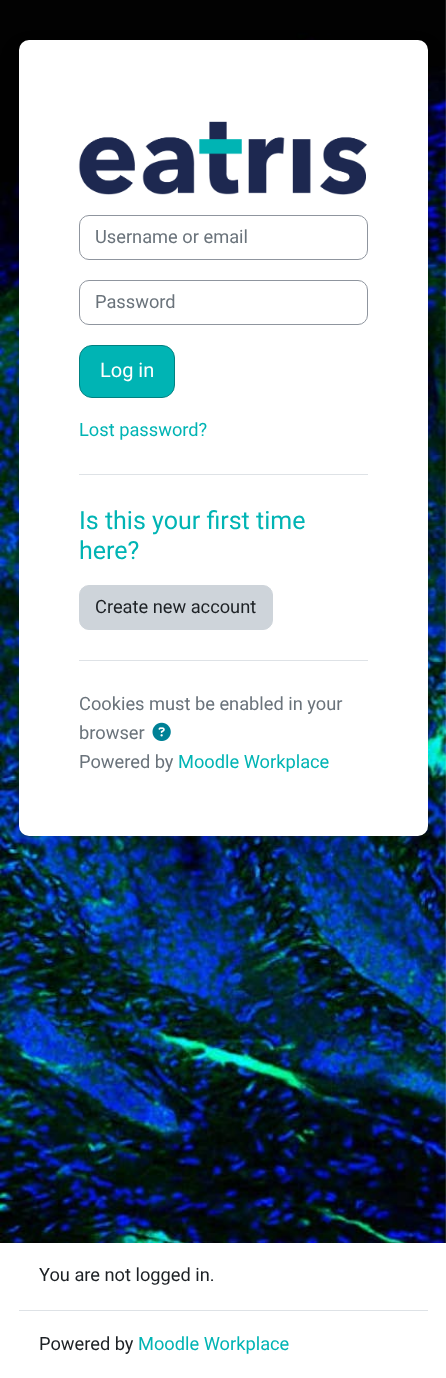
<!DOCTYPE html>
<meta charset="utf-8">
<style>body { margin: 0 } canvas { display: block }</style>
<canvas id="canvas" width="446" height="1378"></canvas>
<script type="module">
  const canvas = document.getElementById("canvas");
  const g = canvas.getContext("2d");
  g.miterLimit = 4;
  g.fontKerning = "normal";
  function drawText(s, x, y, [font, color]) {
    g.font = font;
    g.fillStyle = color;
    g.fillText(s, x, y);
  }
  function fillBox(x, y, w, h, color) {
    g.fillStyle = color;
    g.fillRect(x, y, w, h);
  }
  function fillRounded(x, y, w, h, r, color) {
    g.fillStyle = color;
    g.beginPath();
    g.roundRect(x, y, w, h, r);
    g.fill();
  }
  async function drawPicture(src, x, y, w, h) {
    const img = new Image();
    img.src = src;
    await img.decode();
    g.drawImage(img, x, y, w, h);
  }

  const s1 = ["18.25px Roboto", "#6A737B"];
  const s2 = ["20px Roboto", "#FFFFFF"];
  const s3 = ["18.25px Roboto", "#00B4B4"];
  const s4 = ["25px Roboto", "#00B4B4"];
  const s5 = ["18.25px Roboto", "#1D2125"];

  fillBox(0, 0, 446, 1378, "#FFFFFF");
  await drawPicture("pic1.png", 0, 0, 446, 1243);
  g.fillStyle = "rgba(0, 0, 0, 0.15)";
  g.filter = "blur(10px)";
  g.beginPath();
  g.roundRect(19, 50, 409, 796, 10);
  g.fill();
  g.filter = "none";
  fillRounded(19, 40, 409, 796, 10, "#FFFFFF");
  await drawPicture("pic2.png", 78, 121, 289, 74);
  g.beginPath();
  g.roundRect(79.5, 215.5, 288, 44, 9.5);
  g.strokeStyle = "#8F959E";
  g.stroke();
  drawText("Username or email", 95, 243, s1);
  g.beginPath();
  g.roundRect(79.5, 280.5, 288, 44, 9.5);
  g.stroke();
  drawText("Password", 95, 308, s1);
  g.fillStyle = "#00B4B4";
  g.beginPath();
  g.roundRect(79.5, 345.5, 95, 52, 12.5);
  g.fill();
  g.strokeStyle = "#008181";
  g.stroke();
  drawText("Log in", 100, 377, s2);
  drawText("Lost password?", 79, 436, s3);
  fillBox(79, 474, 289, 1, "#DEE2E6");
  drawText("Is this your first time", 79, 529, s4);
  drawText("here?", 79, 559, s4);
  g.fillStyle = "#CED4DA";
  g.beginPath();
  g.roundRect(79.5, 585.5, 193, 44, 9.5);
  g.fill();
  g.strokeStyle = "#CED4DA";
  g.stroke();
  drawText("Create new account", 95, 613, s5);
  fillBox(79, 660, 289, 1, "#DEE2E6");
  drawText("Cookies must be enabled in your", 79, 710, s1);
  drawText("browser", 79, 739, s1);
  await drawPicture("pic3.png", 152, 722, 19, 19);
  drawText("Powered by", 79, 768, s1);
  drawText("Moodle Workplace", 178, 768, s3);
  fillBox(19, 1310, 409, 1, "#DEE2E6");
  drawText("You are not logged in.", 39, 1281, s5);
  drawText("Powered by", 39, 1350, s5);
  drawText("Moodle Workplace", 138, 1350, s3);
</script>
